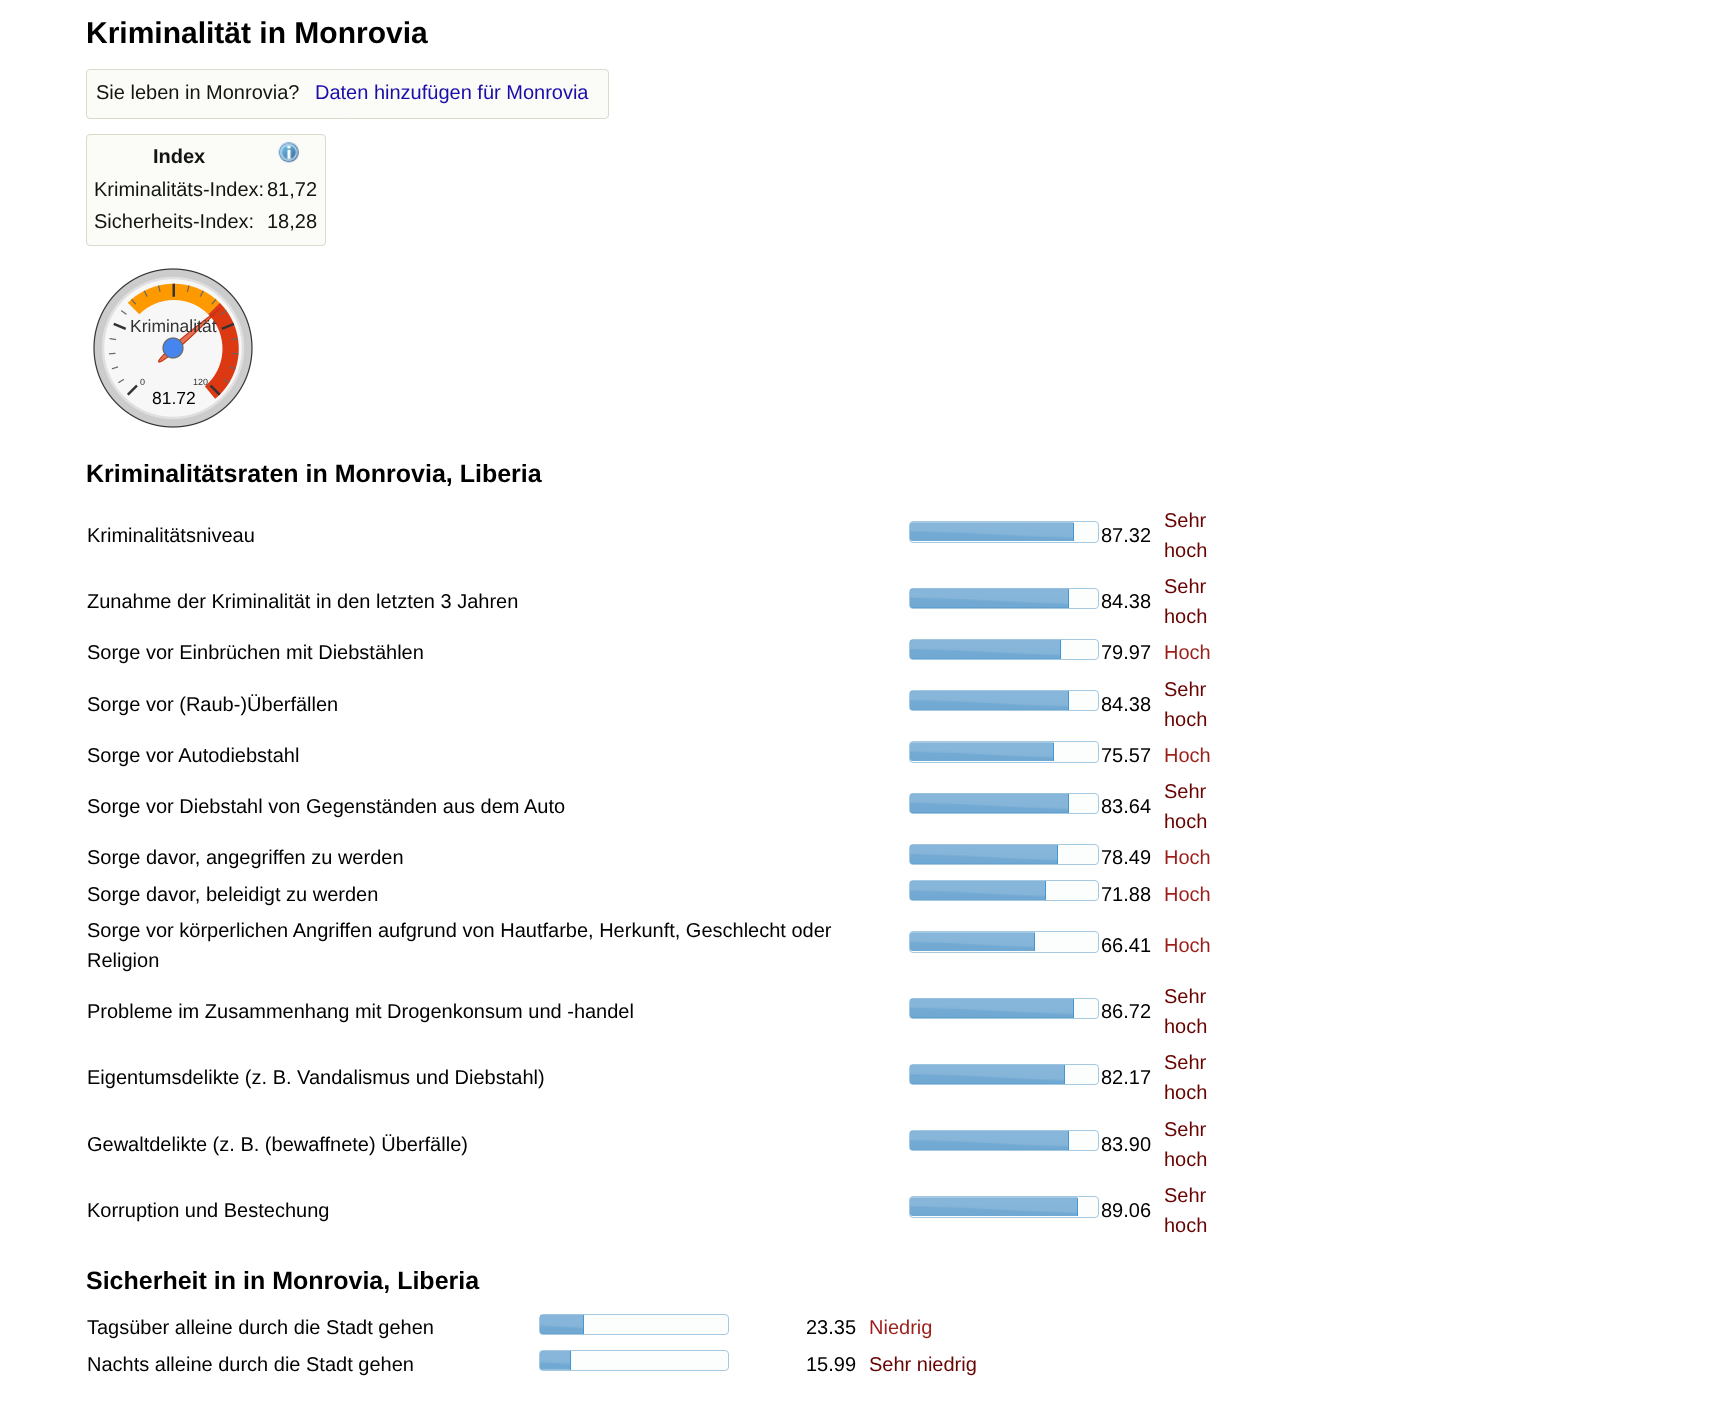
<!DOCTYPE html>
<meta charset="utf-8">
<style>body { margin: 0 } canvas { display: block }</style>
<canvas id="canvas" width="1733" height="1410"></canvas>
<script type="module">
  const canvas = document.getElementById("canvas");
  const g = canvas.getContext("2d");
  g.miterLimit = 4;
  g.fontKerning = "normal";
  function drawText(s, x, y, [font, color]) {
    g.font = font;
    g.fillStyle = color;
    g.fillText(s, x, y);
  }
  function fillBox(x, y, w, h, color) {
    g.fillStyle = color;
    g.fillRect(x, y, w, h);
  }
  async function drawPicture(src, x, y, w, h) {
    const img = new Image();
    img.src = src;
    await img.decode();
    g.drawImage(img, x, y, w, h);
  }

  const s1 = ["bold 30px Liberation Sans", "#000000"];
  const s2 = ["20px Liberation Sans", "#141412"];
  const s3 = ["20px Liberation Sans", "#1A0DAB"];
  const s4 = ["bold 20px Liberation Sans", "#141412"];
  const s5 = ["17.5px Liberation Sans", "#333333"];
  const s6 = ["9px Liberation Sans", "#333333"];
  const s7 = ["17.5px Liberation Sans", "#000000"];
  const s8 = ["bold 25px Liberation Sans", "#000000"];
  const s9 = ["20px Liberation Sans", "#000000"];
  const s10 = ["20px Liberation Sans", "#670300"];
  const s11 = ["20px Liberation Sans", "#9B1E1B"];

  fillBox(0, 0, 1733, 1410, "#FFFFFF");
  drawText("Kriminalität in Monrovia", 86, 43, s1);
  g.fillStyle = "#FBFBF8";
  g.beginPath();
  g.roundRect(86.5, 69.5, 522, 49, 3.5);
  g.fill();
  g.strokeStyle = "#DCDACB";
  g.stroke();
  drawText("Sie leben in Monrovia?", 96, 99, s2);
  drawText("Daten hinzufügen für Monrovia", 315, 99, s3);
  g.fillStyle = "#FBFBF8";
  g.beginPath();
  g.roundRect(86.5, 134.5, 239, 111, 3.5);
  g.fill();
  g.stroke();
  drawText("Index", 153, 163, s4);
  await drawPicture("pic1.png", 278, 142, 21, 21);
  drawText("Kriminalitäts-Index:", 94, 196, s2);
  drawText("81,72", 267, 196, s2);
  drawText("Sicherheits-Index:", 94, 228, s2);
  drawText("18,28", 267, 228, s2);
  await drawPicture("pic2.png", 93, 268, 160, 160);
  drawText("Kriminalität", 130, 332, s5);
  drawText("0", 140, 385, s6);
  drawText("120", 193, 385, s6);
  drawText("81.72", 152, 404, s7);
  drawText("Kriminalitätsraten in Monrovia, Liberia", 86, 482, s8);
  drawText("Kriminalitätsniveau", 87, 542, s9);
  g.fillStyle = "#FCFDFD";
  g.beginPath();
  g.roundRect(909.5, 521.5, 189, 21, 3.5);
  g.fill();
  g.strokeStyle = "#A6C9E2";
  g.stroke();
  await drawPicture("pic3.png", 910, 522, 164, 19);
  fillBox(1073, 523, 1, 18, "#4297D7");
  drawText("87.32", 1101, 542, s9);
  drawText("Sehr", 1164, 527, s10);
  drawText("hoch", 1164, 557, s10);
  drawText("Zunahme der Kriminalität in den letzten 3 Jahren", 87, 608, s9);
  g.fillStyle = "#FCFDFD";
  g.beginPath();
  g.roundRect(909.5, 588.5, 189, 20, 3.5);
  g.fill();
  g.stroke();
  g.save();
  g.beginPath();
  g.roundRect(910, 589, 188, 19, 2.5);
  g.clip();
  g.fillStyle = "#5C9CCC";
  g.beginPath();
  g.roundRect(909, 588, 160, 21, [4, 0, 0, 4]);
  g.fill();
  g.restore();
  await drawPicture("pic4.png", 910, 588, 159, 20);
  g.fillStyle = "#4297D7";
  g.beginPath();
  g.moveTo(1069, 589);
  g.lineTo(1069, 608);
  g.lineTo(1068, 608);
  g.lineTo(1068, 589);
  g.closePath();
  g.moveTo(912, 589);
  g.bezierCurveTo(911, 589, 910, 590, 910, 592);
  g.bezierCurveTo(910, 590, 911, 589, 913, 589);
  g.closePath();
  g.moveTo(910, 605);
  g.bezierCurveTo(910, 607, 911, 608, 913, 608);
  g.bezierCurveTo(911, 608, 910, 607, 910, 605);
  g.closePath();
  g.fill("evenodd");
  drawText("84.38", 1101, 608, s9);
  drawText("Sehr", 1164, 593, s10);
  drawText("hoch", 1164, 623, s10);
  drawText("Sorge vor Einbrüchen mit Diebstählen", 87, 659, s9);
  g.fillStyle = "#FCFDFD";
  g.beginPath();
  g.roundRect(909.5, 639.5, 189, 20, 3.5);
  g.fill();
  g.stroke();
  g.save();
  g.beginPath();
  g.roundRect(910, 640, 188, 19, 2.5);
  g.clip();
  g.fillStyle = "#5C9CCC";
  g.beginPath();
  g.roundRect(909, 639, 152, 21, [4, 0, 0, 4]);
  g.fill();
  g.restore();
  await drawPicture("pic5.png", 910, 639, 152, 20);
  g.fillStyle = "#4297D7";
  g.beginPath();
  g.moveTo(1061, 640);
  g.lineTo(1061, 659);
  g.lineTo(1060, 659);
  g.lineTo(1060, 640);
  g.closePath();
  g.moveTo(912, 640);
  g.bezierCurveTo(911, 640, 910, 641, 910, 643);
  g.bezierCurveTo(910, 641, 911, 640, 913, 640);
  g.closePath();
  g.moveTo(910, 656);
  g.bezierCurveTo(910, 658, 911, 659, 913, 659);
  g.bezierCurveTo(911, 659, 910, 658, 910, 656);
  g.closePath();
  g.fill("evenodd");
  drawText("79.97", 1101, 659, s9);
  drawText("Hoch", 1164, 659, s11);
  drawText("Sorge vor (Raub-)Überfällen", 87, 711, s9);
  g.fillStyle = "#FCFDFD";
  g.beginPath();
  g.roundRect(909.5, 690.5, 189, 20, 3.5);
  g.fill();
  g.stroke();
  g.save();
  g.beginPath();
  g.roundRect(910, 691, 188, 19, 2.5);
  g.clip();
  g.fillStyle = "#5C9CCC";
  g.beginPath();
  g.roundRect(909, 690, 160, 21, [4, 0, 0, 4]);
  g.fill();
  g.restore();
  await drawPicture("pic6.png", 910, 691, 158, 19);
  g.fillStyle = "#4297D7";
  g.beginPath();
  g.moveTo(1069, 691);
  g.lineTo(1069, 710);
  g.lineTo(1068, 710);
  g.lineTo(1068, 691);
  g.closePath();
  g.moveTo(912, 691);
  g.bezierCurveTo(911, 691, 910, 692, 910, 694);
  g.bezierCurveTo(910, 692, 911, 691, 913, 691);
  g.closePath();
  g.moveTo(910, 707);
  g.bezierCurveTo(910, 709, 911, 710, 913, 710);
  g.bezierCurveTo(911, 710, 910, 709, 910, 707);
  g.closePath();
  g.fill("evenodd");
  drawText("84.38", 1101, 711, s9);
  drawText("Sehr", 1164, 696, s10);
  drawText("hoch", 1164, 726, s10);
  drawText("Sorge vor Autodiebstahl", 87, 762, s9);
  g.fillStyle = "#FCFDFD";
  g.beginPath();
  g.roundRect(909.5, 741.5, 189, 21, 3.5);
  g.fill();
  g.stroke();
  await drawPicture("pic7.png", 910, 742, 144, 19);
  fillBox(1053, 743, 1, 18, "#4297D7");
  drawText("75.57", 1101, 762, s9);
  drawText("Hoch", 1164, 762, s11);
  drawText("Sorge vor Diebstahl von Gegenständen aus dem Auto", 87, 813, s9);
  g.fillStyle = "#FCFDFD";
  g.beginPath();
  g.roundRect(909.5, 793.5, 189, 20, 3.5);
  g.fill();
  g.stroke();
  g.save();
  g.beginPath();
  g.roundRect(910, 794, 188, 19, 2.5);
  g.clip();
  g.fillStyle = "#5C9CCC";
  g.beginPath();
  g.roundRect(909, 793, 160, 21, [4, 0, 0, 4]);
  g.fill();
  g.restore();
  await drawPicture("pic4.png", 910, 793, 159, 20);
  g.fillStyle = "#4297D7";
  g.beginPath();
  g.moveTo(1069, 794);
  g.lineTo(1069, 813);
  g.lineTo(1068, 813);
  g.lineTo(1068, 794);
  g.closePath();
  g.moveTo(912, 794);
  g.bezierCurveTo(911, 794, 910, 795, 910, 797);
  g.bezierCurveTo(910, 795, 911, 794, 913, 794);
  g.closePath();
  g.moveTo(910, 810);
  g.bezierCurveTo(910, 812, 911, 813, 913, 813);
  g.bezierCurveTo(911, 813, 910, 812, 910, 810);
  g.closePath();
  g.fill("evenodd");
  drawText("83.64", 1101, 813, s9);
  drawText("Sehr", 1164, 798, s10);
  drawText("hoch", 1164, 828, s10);
  drawText("Sorge davor, angegriffen zu werden", 87, 864, s9);
  g.fillStyle = "#FCFDFD";
  g.beginPath();
  g.roundRect(909.5, 844.5, 189, 20, 3.5);
  g.fill();
  g.stroke();
  g.save();
  g.beginPath();
  g.roundRect(910, 845, 188, 19, 2.5);
  g.clip();
  g.fillStyle = "#5C9CCC";
  g.beginPath();
  g.roundRect(909, 844, 149, 21, [4, 0, 0, 4]);
  g.fill();
  g.restore();
  await drawPicture("pic8.png", 910, 844, 148, 20);
  g.fillStyle = "#4297D7";
  g.beginPath();
  g.moveTo(1058, 845);
  g.lineTo(1058, 864);
  g.lineTo(1057, 864);
  g.lineTo(1057, 845);
  g.closePath();
  g.moveTo(912, 845);
  g.bezierCurveTo(911, 845, 910, 846, 910, 848);
  g.bezierCurveTo(910, 846, 911, 845, 913, 845);
  g.closePath();
  g.moveTo(910, 861);
  g.bezierCurveTo(910, 863, 911, 864, 913, 864);
  g.bezierCurveTo(911, 864, 910, 863, 910, 861);
  g.closePath();
  g.fill("evenodd");
  drawText("78.49", 1101, 864, s9);
  drawText("Hoch", 1164, 864, s11);
  drawText("Sorge davor, beleidigt zu werden", 87, 901, s9);
  g.fillStyle = "#FCFDFD";
  g.beginPath();
  g.roundRect(909.5, 880.5, 189, 20, 3.5);
  g.fill();
  g.stroke();
  g.save();
  g.beginPath();
  g.roundRect(910, 881, 188, 19, 2.5);
  g.clip();
  g.fillStyle = "#5C9CCC";
  g.beginPath();
  g.roundRect(909, 880, 137, 21, [4, 0, 0, 4]);
  g.fill();
  g.restore();
  await drawPicture("pic9.png", 910, 881, 137, 19);
  g.fillStyle = "#4297D7";
  g.beginPath();
  g.moveTo(1046, 881);
  g.lineTo(1046, 900);
  g.lineTo(1045, 900);
  g.lineTo(1045, 881);
  g.closePath();
  g.moveTo(912, 881);
  g.bezierCurveTo(911, 881, 910, 882, 910, 884);
  g.bezierCurveTo(910, 882, 911, 881, 913, 881);
  g.closePath();
  g.moveTo(910, 897);
  g.bezierCurveTo(910, 899, 911, 900, 913, 900);
  g.bezierCurveTo(911, 900, 910, 899, 910, 897);
  g.closePath();
  g.fill("evenodd");
  drawText("71.88", 1101, 901, s9);
  drawText("Hoch", 1164, 901, s11);
  drawText("Sorge vor körperlichen Angriffen aufgrund von Hautfarbe, Herkunft, Geschlecht oder", 87, 937, s9);
  drawText("Religion", 87, 967, s9);
  g.fillStyle = "#FCFDFD";
  g.beginPath();
  g.roundRect(909.5, 931.5, 189, 21, 3.5);
  g.fill();
  g.stroke();
  await drawPicture("pic10.png", 910, 932, 125, 19);
  fillBox(1034, 933, 1, 18, "#4297D7");
  drawText("66.41", 1101, 952, s9);
  drawText("Hoch", 1164, 952, s11);
  drawText("Probleme im Zusammenhang mit Drogenkonsum und -handel", 87, 1018, s9);
  g.fillStyle = "#FCFDFD";
  g.beginPath();
  g.roundRect(909.5, 998.5, 189, 20, 3.5);
  g.fill();
  g.stroke();
  g.save();
  g.beginPath();
  g.roundRect(910, 999, 188, 19, 2.5);
  g.clip();
  g.fillStyle = "#5C9CCC";
  g.beginPath();
  g.roundRect(909, 998, 165, 21, [4, 0, 0, 4]);
  g.fill();
  g.restore();
  await drawPicture("pic11.png", 910, 998, 164, 20);
  g.fillStyle = "#4297D7";
  g.beginPath();
  g.moveTo(1074, 999);
  g.lineTo(1074, 1018);
  g.lineTo(1073, 1018);
  g.lineTo(1073, 999);
  g.closePath();
  g.moveTo(912, 999);
  g.bezierCurveTo(911, 999, 910, 1000, 910, 1002);
  g.bezierCurveTo(910, 1000, 911, 999, 913, 999);
  g.closePath();
  g.moveTo(910, 1015);
  g.bezierCurveTo(910, 1017, 911, 1018, 913, 1018);
  g.bezierCurveTo(911, 1018, 910, 1017, 910, 1015);
  g.closePath();
  g.fill("evenodd");
  drawText("86.72", 1101, 1018, s9);
  drawText("Sehr", 1164, 1003, s10);
  drawText("hoch", 1164, 1033, s10);
  drawText("Eigentumsdelikte (z. B. Vandalismus und Diebstahl)", 87, 1084, s9);
  g.fillStyle = "#FCFDFD";
  g.beginPath();
  g.roundRect(909.5, 1064.5, 189, 20, 3.5);
  g.fill();
  g.stroke();
  g.save();
  g.beginPath();
  g.roundRect(910, 1065, 188, 19, 2.5);
  g.clip();
  g.fillStyle = "#5C9CCC";
  g.beginPath();
  g.roundRect(909, 1064, 156, 21, [4, 0, 0, 4]);
  g.fill();
  g.restore();
  await drawPicture("pic12.png", 910, 1064, 155, 20);
  g.fillStyle = "#4297D7";
  g.beginPath();
  g.moveTo(1065, 1065);
  g.lineTo(1065, 1084);
  g.lineTo(1064, 1084);
  g.lineTo(1064, 1065);
  g.closePath();
  g.moveTo(912, 1065);
  g.bezierCurveTo(911, 1065, 910, 1066, 910, 1068);
  g.bezierCurveTo(910, 1066, 911, 1065, 913, 1065);
  g.closePath();
  g.moveTo(910, 1081);
  g.bezierCurveTo(910, 1083, 911, 1084, 913, 1084);
  g.bezierCurveTo(911, 1084, 910, 1083, 910, 1081);
  g.closePath();
  g.fill("evenodd");
  drawText("82.17", 1101, 1084, s9);
  drawText("Sehr", 1164, 1069, s10);
  drawText("hoch", 1164, 1099, s10);
  drawText("Gewaltdelikte (z. B. (bewaffnete) Überfälle)", 87, 1151, s9);
  g.fillStyle = "#FCFDFD";
  g.beginPath();
  g.roundRect(909.5, 1130.5, 189, 20, 3.5);
  g.fill();
  g.stroke();
  g.save();
  g.beginPath();
  g.roundRect(910, 1131, 188, 19, 2.5);
  g.clip();
  g.fillStyle = "#5C9CCC";
  g.beginPath();
  g.roundRect(909, 1130, 160, 21, [4, 0, 0, 4]);
  g.fill();
  g.restore();
  await drawPicture("pic6.png", 910, 1131, 158, 19);
  g.fillStyle = "#4297D7";
  g.beginPath();
  g.moveTo(1069, 1131);
  g.lineTo(1069, 1150);
  g.lineTo(1068, 1150);
  g.lineTo(1068, 1131);
  g.closePath();
  g.moveTo(912, 1131);
  g.bezierCurveTo(911, 1131, 910, 1132, 910, 1134);
  g.bezierCurveTo(910, 1132, 911, 1131, 913, 1131);
  g.closePath();
  g.moveTo(910, 1147);
  g.bezierCurveTo(910, 1149, 911, 1150, 913, 1150);
  g.bezierCurveTo(911, 1150, 910, 1149, 910, 1147);
  g.closePath();
  g.fill("evenodd");
  drawText("83.90", 1101, 1151, s9);
  drawText("Sehr", 1164, 1136, s10);
  drawText("hoch", 1164, 1166, s10);
  drawText("Korruption und Bestechung", 87, 1217, s9);
  g.fillStyle = "#FCFDFD";
  g.beginPath();
  g.roundRect(909.5, 1196.5, 189, 21, 3.5);
  g.fill();
  g.stroke();
  await drawPicture("pic13.png", 910, 1197, 168, 19);
  fillBox(1077, 1198, 1, 18, "#4297D7");
  drawText("89.06", 1101, 1217, s9);
  drawText("Sehr", 1164, 1202, s10);
  drawText("hoch", 1164, 1232, s10);
  drawText("Sicherheit in in Monrovia, Liberia", 86, 1289, s8);
  drawText("Tagsüber alleine durch die Stadt gehen", 87, 1334, s9);
  g.fillStyle = "#FCFDFD";
  g.beginPath();
  g.roundRect(539.5, 1314.5, 189, 20, 3.5);
  g.fill();
  g.stroke();
  g.save();
  g.beginPath();
  g.roundRect(540, 1315, 188, 19, 2.5);
  g.clip();
  g.fillStyle = "#5C9CCC";
  g.beginPath();
  g.roundRect(539, 1314, 45, 21, [4, 0, 0, 4]);
  g.fill();
  g.restore();
  await drawPicture("pic14.png", 540, 1314, 44, 20);
  g.fillStyle = "#4297D7";
  g.beginPath();
  g.moveTo(584, 1315);
  g.lineTo(584, 1334);
  g.lineTo(583, 1334);
  g.lineTo(583, 1315);
  g.closePath();
  g.moveTo(542, 1315);
  g.bezierCurveTo(541, 1315, 540, 1316, 540, 1318);
  g.bezierCurveTo(540, 1316, 541, 1315, 543, 1315);
  g.closePath();
  g.moveTo(540, 1331);
  g.bezierCurveTo(540, 1333, 541, 1334, 543, 1334);
  g.bezierCurveTo(541, 1334, 540, 1333, 540, 1331);
  g.closePath();
  g.fill("evenodd");
  drawText("23.35", 806, 1334, s9);
  drawText("Niedrig", 869, 1334, s11);
  drawText("Nachts alleine durch die Stadt gehen", 87, 1371, s9);
  g.fillStyle = "#FCFDFD";
  g.beginPath();
  g.roundRect(539.5, 1350.5, 189, 20, 3.5);
  g.fill();
  g.stroke();
  await drawPicture("pic15.png", 540, 1351, 32, 19);
  g.fillStyle = "#4297D7";
  g.beginPath();
  g.moveTo(571, 1351);
  g.lineTo(571, 1370);
  g.lineTo(570, 1370);
  g.lineTo(570, 1351);
  g.closePath();
  g.moveTo(542.5, 1351);
  g.bezierCurveTo(541, 1351, 540, 1352.5, 540, 1354);
  g.bezierCurveTo(540, 1352.5, 541.5, 1351, 543, 1351);
  g.closePath();
  g.moveTo(540, 1367);
  g.bezierCurveTo(540, 1369, 541, 1370, 543, 1370);
  g.bezierCurveTo(541.5, 1370, 540, 1368.5, 540, 1367);
  g.closePath();
  g.fill("evenodd");
  drawText("15.99", 806, 1371, s9);
  drawText("Sehr niedrig", 869, 1371, s10);
</script>
